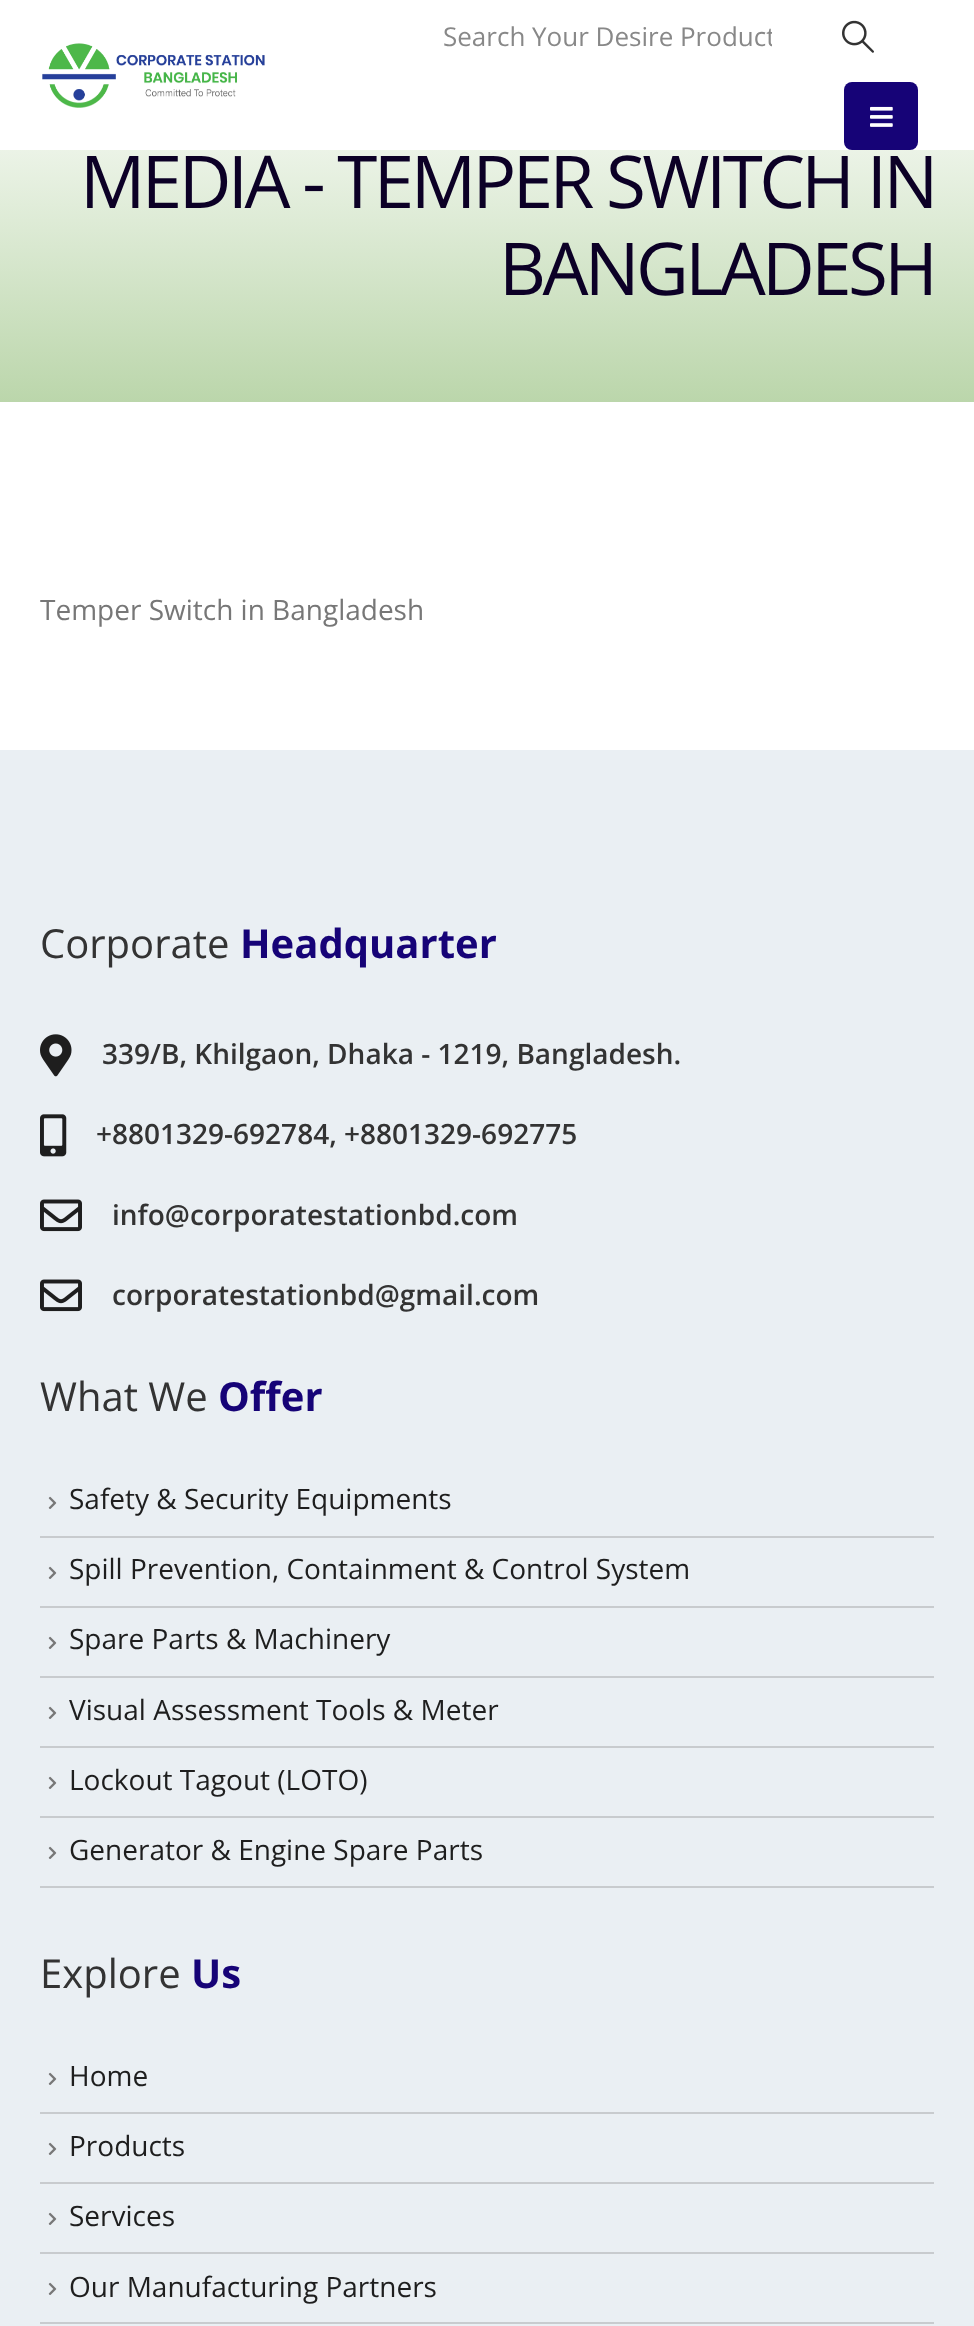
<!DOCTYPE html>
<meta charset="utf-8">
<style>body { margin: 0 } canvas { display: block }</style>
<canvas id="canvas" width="974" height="2326"></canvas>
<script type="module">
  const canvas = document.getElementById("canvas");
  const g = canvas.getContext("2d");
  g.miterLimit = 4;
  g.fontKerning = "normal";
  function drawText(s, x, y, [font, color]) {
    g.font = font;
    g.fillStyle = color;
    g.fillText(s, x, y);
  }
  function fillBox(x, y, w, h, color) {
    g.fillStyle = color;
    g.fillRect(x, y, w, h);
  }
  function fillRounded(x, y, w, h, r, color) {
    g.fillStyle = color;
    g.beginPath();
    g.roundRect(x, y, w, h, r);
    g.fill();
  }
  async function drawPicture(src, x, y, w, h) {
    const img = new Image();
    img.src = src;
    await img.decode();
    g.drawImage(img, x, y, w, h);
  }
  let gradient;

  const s1 = ["26px Open Sans", "#888888"];
  const s2 = ["72.75px Open Sans", "#0C0026"];
  const s3 = ["28px Open Sans", "#777777"];
  const s4 = ["40px Open Sans", "#333333"];
  const s5 = ["bold 40px Open Sans", "#160377"];
  const s6 = ["600 28px Open Sans", "#333333"];
  const s7 = ["28px Open Sans", "#1E1E1E"];

  fillBox(0, 0, 974, 2326, "#FFFFFF");
  g.save();
  g.beginPath();
  g.rect(442, 18, 330, 36);
  g.clip();
  drawText("Search Your Desire Product", 443, 46, s1);
  g.restore();
  await drawPicture("pic1.png", 842, 20, 32, 33);
  fillRounded(844, 82, 74, 68, 8, "#160377");
  await drawPicture("pic2.png", 870, 106, 23, 21);
  await drawPicture("pic3.png", 42, 43, 223, 65);
  gradient = g.createLinearGradient(487, 48, 487, 402);
  gradient.addColorStop(0, "#FFFFFF");
  gradient.addColorStop(1, "#BBD6AB");
  g.fillStyle = gradient;
  g.fillRect(0, 150, 974, 252);
  g.letterSpacing = "-3.6px";
  drawText("MEDIA - TEMPER SWITCH IN", 80, 208, s2);
  drawText("BANGLADESH", 499, 295, s2);
  g.letterSpacing = "0px";
  drawText("Temper Switch in Bangladesh", 40, 620, s3);
  fillBox(0, 750, 974, 1576, "#EAEFF3");
  drawText("Corporate", 40, 958, s4);
  drawText("Headquarter", 240, 958, s5);
  await drawPicture("pic4.png", 40, 1034, 32, 43);
  drawText("339/B, Khilgaon, Dhaka - 1219, Bangladesh.", 102, 1064, s6);
  await drawPicture("pic5.png", 40, 1114, 27, 43);
  drawText("+8801329-692784, +8801329-692775", 96, 1144, s6);
  await drawPicture("pic6.png", 40, 1199, 42, 33);
  drawText("info@corporatestationbd.com", 112, 1225, s6);
  await drawPicture("pic6.png", 40, 1279, 42, 33);
  drawText("corporatestationbd@gmail.com", 112, 1305, s6);
  drawText("What We", 40, 1411, s4);
  drawText("Offer", 218, 1411, s5);
  fillBox(40, 1886, 894, 2, "#C8CBCE");
  await drawPicture("pic7.png", 48, 1496, 9, 13);
  drawText("Safety & Security Equipments", 69, 1509, s7);
  fillBox(40, 1536, 894, 2, "#C8CBCE");
  await drawPicture("pic7.png", 48, 1566, 9, 13);
  drawText("Spill Prevention, Containment & Control System", 69, 1579, s7);
  fillBox(40, 1606, 894, 2, "#C8CBCE");
  await drawPicture("pic7.png", 48, 1636, 9, 13);
  drawText("Spare Parts & Machinery", 69, 1649, s7);
  fillBox(40, 1676, 894, 2, "#C8CBCE");
  await drawPicture("pic7.png", 48, 1706, 9, 13);
  drawText("Visual Assessment Tools & Meter", 69, 1720, s7);
  fillBox(40, 1746, 894, 2, "#C8CBCE");
  await drawPicture("pic7.png", 48, 1776, 9, 13);
  drawText("Lockout Tagout (LOTO)", 69, 1790, s7);
  fillBox(40, 1816, 894, 2, "#C8CBCE");
  await drawPicture("pic7.png", 48, 1846, 9, 13);
  drawText("Generator & Engine Spare Parts", 69, 1860, s7);
  drawText("Explore", 40, 1988, s4);
  drawText("Us", 191, 1988, s5);
  await drawPicture("pic7.png", 48, 2072, 9, 13);
  drawText("Home", 69, 2086, s7);
  fillBox(40, 2112, 894, 2, "#C8CBCE");
  await drawPicture("pic7.png", 48, 2142, 9, 13);
  drawText("Products", 69, 2156, s7);
  fillBox(40, 2182, 894, 2, "#C8CBCE");
  await drawPicture("pic7.png", 48, 2212, 9, 13);
  drawText("Services", 69, 2226, s7);
  fillBox(40, 2252, 894, 2, "#C8CBCE");
  await drawPicture("pic7.png", 48, 2282, 9, 13);
  drawText("Our Manufacturing Partners", 69, 2297, s7);
  fillBox(40, 2322, 894, 2, "#C8CBCE");
</script>
